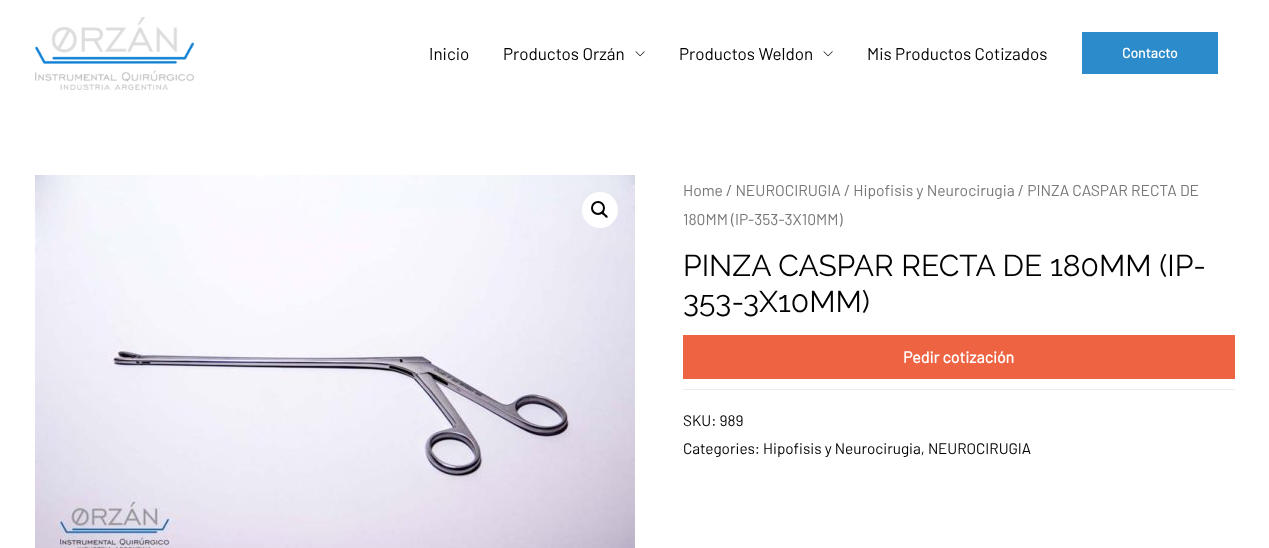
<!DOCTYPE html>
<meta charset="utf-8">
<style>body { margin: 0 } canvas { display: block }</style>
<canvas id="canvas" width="1269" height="548"></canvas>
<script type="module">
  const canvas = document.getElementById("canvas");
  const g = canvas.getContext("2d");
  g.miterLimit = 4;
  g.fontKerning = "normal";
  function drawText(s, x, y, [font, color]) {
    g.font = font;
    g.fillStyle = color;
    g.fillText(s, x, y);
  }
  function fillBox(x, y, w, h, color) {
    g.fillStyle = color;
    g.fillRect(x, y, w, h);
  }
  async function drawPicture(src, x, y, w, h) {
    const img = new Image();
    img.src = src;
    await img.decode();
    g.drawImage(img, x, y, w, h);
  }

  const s1 = ["17px Barlow", "#000000"];
  const s2 = ["bold 14px Barlow", "#FFFFFF"];
  const s3 = ["15.65px Barlow", "#777777"];
  const s4 = ["30px Raleway", "#000000"];
  const s5 = ["bold 16px Barlow", "#FFFFFF"];
  const s6 = ["15.3px Barlow", "#000000"];

  fillBox(0, 0, 1269, 548, "#FFFFFF");
  await drawPicture("pic1.png", 35, 17, 159, 73);
  drawText("Inicio", 429, 60, s1);
  drawText("Productos Orzán", 503, 60, s1);
  await drawPicture("pic2.png", 635, 51, 10, 6);
  drawText("Productos Weldon", 679, 60, s1);
  await drawPicture("pic2.png", 823, 51, 10, 6);
  drawText("Mis Productos Cotizados", 867, 60, s1);
  fillBox(1082, 32, 136, 42, "#2C8BCB");
  drawText("Contacto", 1122, 58, s2);
  await drawPicture("pic3.png", 35, 175, 600, 373);
  g.beginPath();
  g.arc(600, 210, 18, 0, Math.PI * 2);
  g.fill();
  g.beginPath();
  g.arc(598, 208, 6, 0, Math.PI * 2);
  g.strokeStyle = "#000000";
  g.lineWidth = 2;
  g.stroke();
  g.fillStyle = "#000000";
  g.beginPath();
  g.moveTo(601.5, 212);
  g.bezierCurveTo(603, 210.5, 604.5, 213.5, 605, 214);
  g.bezierCurveTo(606, 214.5, 608.5, 216.5, 607.5, 217.5);
  g.bezierCurveTo(606, 218.5, 604.5, 216, 604, 215.5);
  g.bezierCurveTo(603, 215, 600.5, 213, 601.5, 212);
  g.closePath();
  g.fill();
  drawText("Home / NEUROCIRUGIA / Hipofisis y Neurocirugia / PINZA CASPAR RECTA DE", 683, 196, s3);
  drawText("180MM (IP-353-3X10MM)", 683, 225, s3);
  drawText("PINZA CASPAR RECTA DE 180MM (IP-", 683, 276, s4);
  drawText("353-3X10MM)", 683, 312, s4);
  fillBox(683, 335, 552, 44, "#EE6443");
  drawText("Pedir cotización", 903, 363, s5);
  fillBox(683, 389, 552, 1, "#EBEBEB");
  drawText("SKU: 989", 683, 426, s6);
  drawText("Categories: Hipofisis y Neurocirugia, NEUROCIRUGIA", 683, 454, s6);
</script>
